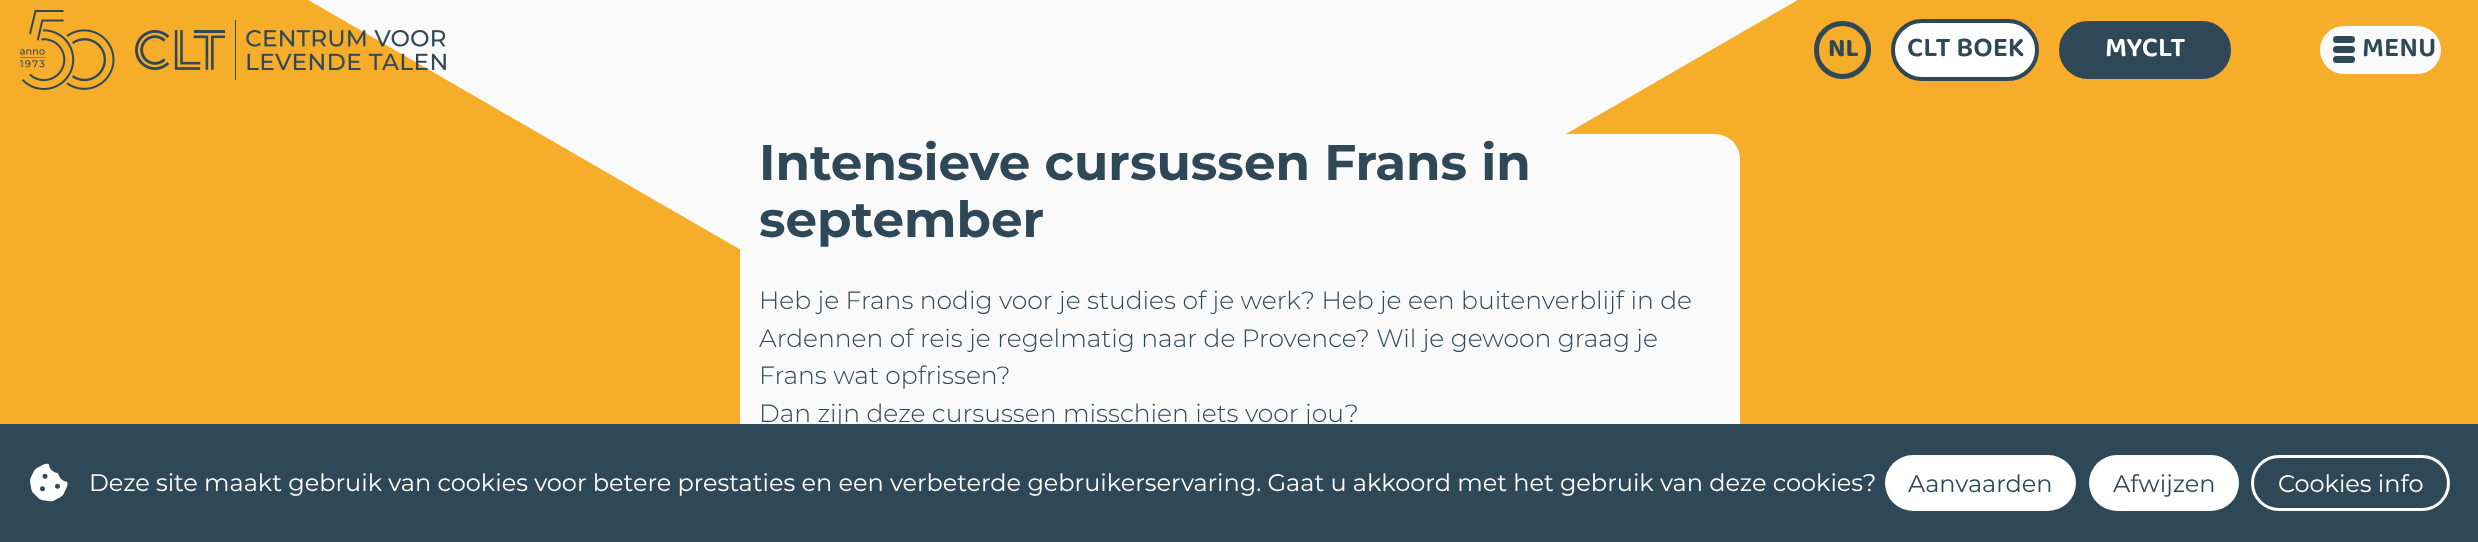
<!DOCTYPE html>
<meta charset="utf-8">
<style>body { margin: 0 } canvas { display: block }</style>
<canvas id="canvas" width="2478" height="542"></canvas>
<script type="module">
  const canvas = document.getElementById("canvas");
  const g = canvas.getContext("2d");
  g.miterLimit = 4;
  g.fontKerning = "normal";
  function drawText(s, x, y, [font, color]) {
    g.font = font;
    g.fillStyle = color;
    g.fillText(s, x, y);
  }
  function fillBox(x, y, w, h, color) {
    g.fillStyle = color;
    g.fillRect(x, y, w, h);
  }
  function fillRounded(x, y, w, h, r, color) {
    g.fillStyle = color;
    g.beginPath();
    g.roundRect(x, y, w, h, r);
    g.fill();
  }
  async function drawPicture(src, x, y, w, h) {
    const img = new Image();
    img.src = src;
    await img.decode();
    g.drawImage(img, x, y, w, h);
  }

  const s1 = ["bold 26px 'Baloo Bhai 2'", "#2F4858"];
  const s2 = ["600 28px 'Baloo Bhai 2'", "#2F4858"];
  const s3 = ["600 28px 'Baloo Bhai 2'", "#FFFFFF"];
  const s4 = ["bold 50px Montserrat", "#2F4858"];
  const s5 = ["300 25px Montserrat", "#2F4858"];
  const s6 = ["24px Montserrat", "#FFFFFF"];
  const s7 = ["24px Montserrat", "#2F4858"];

  fillBox(0, 0, 2478, 542, "#FAFAFA");
  g.fillStyle = "#F5AD2A";
  g.beginPath();
  g.moveTo(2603, -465);
  g.lineTo(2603, 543);
  g.lineTo(0, 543);
  g.lineTo(0, -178);
  g.lineTo(954, 373);
  g.bezierCurveTo(1015, 408, 1091, 408, 1152, 373);
  g.closePath();
  g.fill();
  await drawPicture("pic1.png", 20, 10, 95, 80);
  await drawPicture("pic2.png", 135, 30, 90, 40);
  fillBox(235, 20, 1, 60, "#314756");
  await drawPicture("pic3.png", 246, 30, 200, 40);
  g.beginPath();
  g.roundRect(1816.5, 23.5, 52, 53, 26);
  g.strokeStyle = "#2F4858";
  g.lineWidth = 5;
  g.stroke();
  drawText("NL", 1828, 56, s1);
  g.fillStyle = "#FFFFFF";
  g.beginPath();
  g.roundRect(1893, 21, 144, 58, 29);
  g.fill();
  g.lineWidth = 4;
  g.stroke();
  drawText("CLT BOEK", 1907, 56, s2);
  g.beginPath();
  g.roundRect(2061, 23, 168, 54, 27);
  g.fill();
  g.stroke();
  drawText("MYCLT", 2105, 56, s3);
  fillRounded(2320, 26, 121, 48, 24, "#FAFAFA");
  fillRounded(2333, 36, 22, 7, 3.5, "#2F4858");
  fillRounded(2333, 46, 22, 7, 3.5, "#2F4858");
  fillRounded(2333, 56, 22, 7, 3.5, "#2F4858");
  drawText("MENU", 2362, 56, s2);
  fillRounded(740, 134, 1000, 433, 25, "#FAFAFA");
  drawText("Intensieve cursussen Frans in", 759, 180, s4);
  drawText("september", 759, 237, s4);
  drawText("Heb je Frans nodig voor je studies of je werk? Heb je een buitenverblijf in de", 759, 309, s5);
  drawText("Ardennen of reis je regelmatig naar de Provence? Wil je gewoon graag je", 759, 347, s5);
  drawText("Frans wat opfrissen?", 759, 384, s5);
  drawText("Dan zijn deze cursussen misschien iets voor jou?", 759, 422, s5);
  fillBox(0, 424, 2478, 118, "#2F4858");
  await drawPicture("pic4.png", 30, 463, 38, 39);
  drawText("Deze site maakt gebruik van cookies voor betere prestaties en een verbeterde gebruikerservaring. Gaat u akkoord met het gebruik van deze cookies?", 89, 491, s6);
  fillRounded(1885, 455, 191, 56, 28, "#FFFFFF");
  drawText("Aanvaarden", 1908, 492, s7);
  fillRounded(2089, 455, 150, 56, 28, "#FFFFFF");
  drawText("Afwijzen", 2113, 492, s7);
  g.beginPath();
  g.roundRect(2252.5, 456.5, 196, 53, 26.5);
  g.strokeStyle = "#FFFFFF";
  g.lineWidth = 3;
  g.stroke();
  drawText("Cookies info", 2278, 492, s6);
</script>
